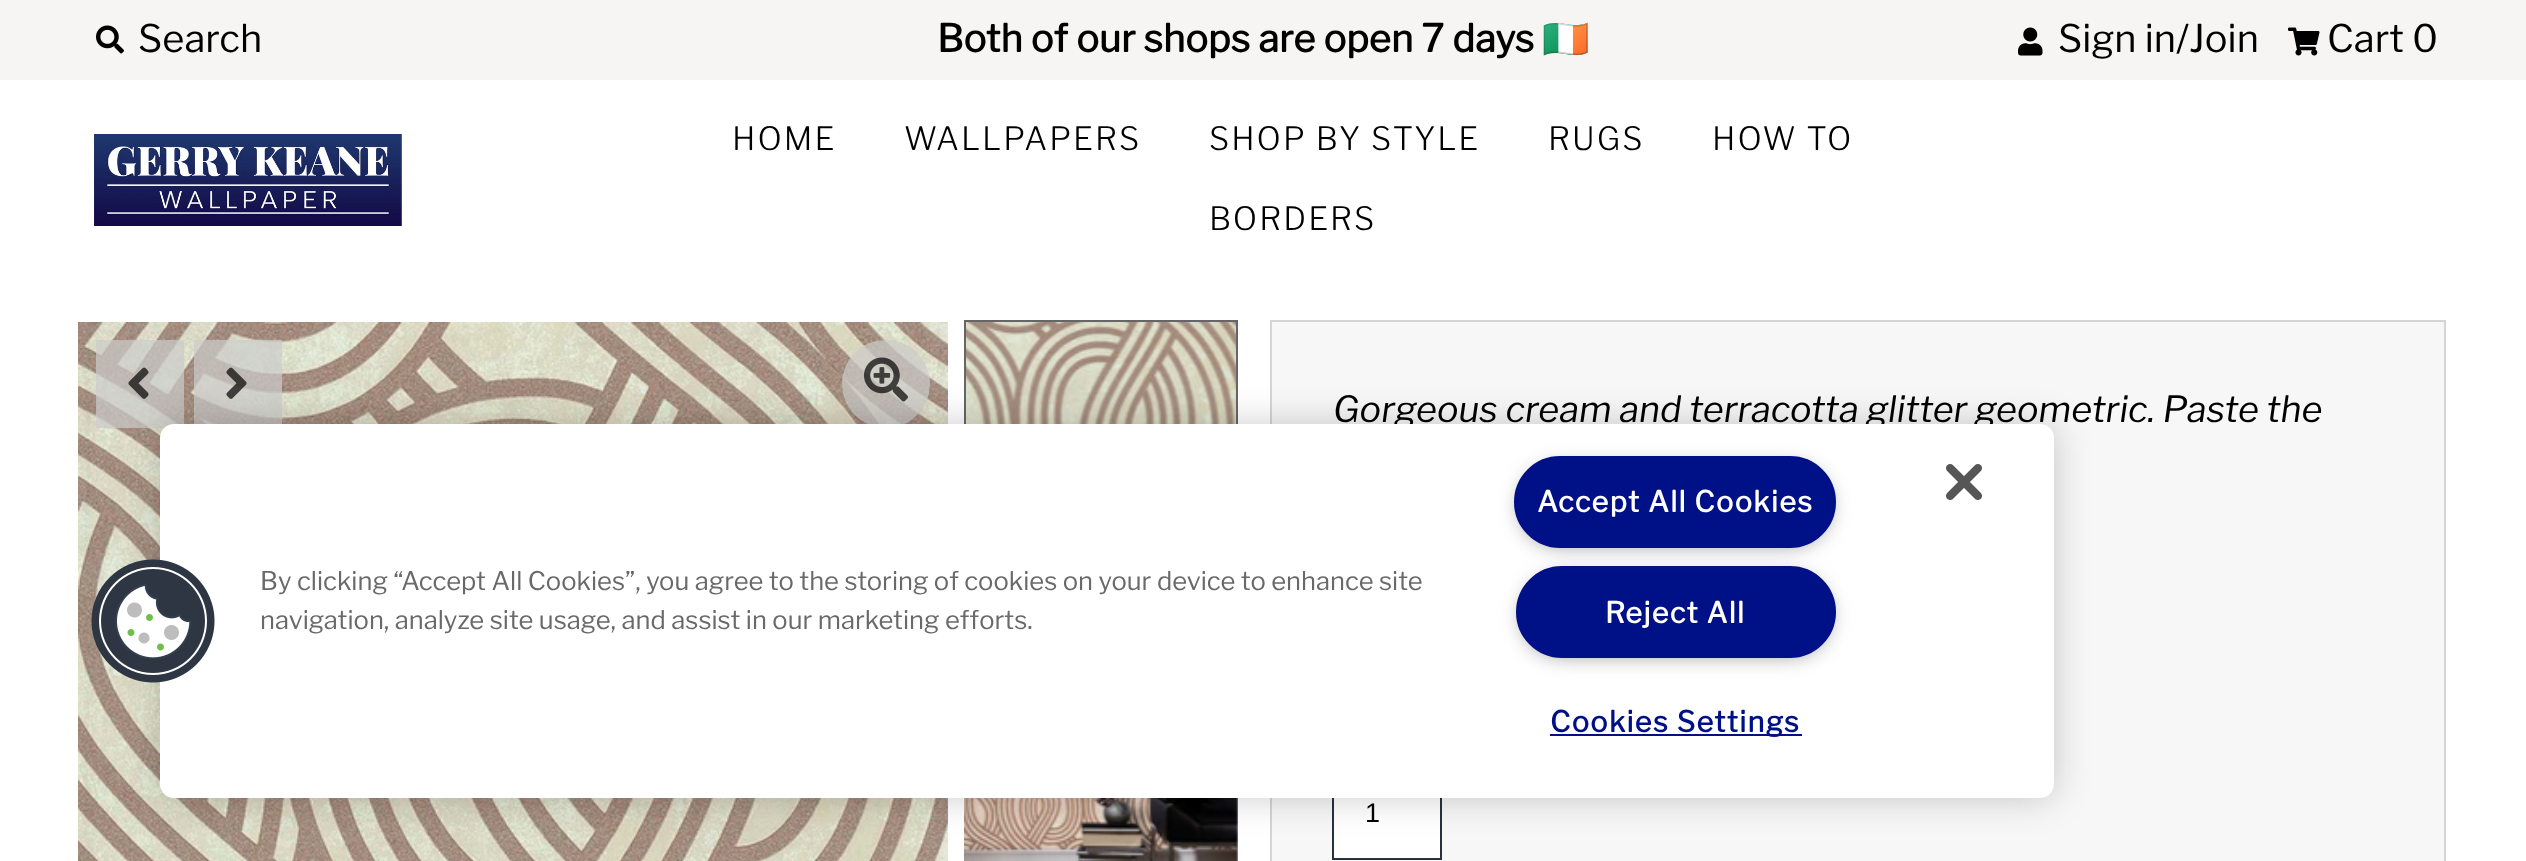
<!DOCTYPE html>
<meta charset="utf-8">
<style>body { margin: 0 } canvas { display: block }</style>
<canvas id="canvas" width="2526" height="861"></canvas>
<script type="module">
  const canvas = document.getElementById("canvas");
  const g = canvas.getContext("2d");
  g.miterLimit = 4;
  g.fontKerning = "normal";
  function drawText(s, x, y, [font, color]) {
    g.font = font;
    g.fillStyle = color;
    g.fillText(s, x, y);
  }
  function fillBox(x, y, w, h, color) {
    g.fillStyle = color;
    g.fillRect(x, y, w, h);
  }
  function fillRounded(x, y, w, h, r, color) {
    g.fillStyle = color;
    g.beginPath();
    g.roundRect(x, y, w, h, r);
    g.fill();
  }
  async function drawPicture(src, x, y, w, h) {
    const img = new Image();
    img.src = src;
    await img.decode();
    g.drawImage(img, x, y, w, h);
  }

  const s1 = ["38px Libre Franklin", "#000000"];
  const s2 = ["bold 38px Libre Franklin", "#000000"];
  const s3 = ["bold 38px Noto Color Emoji", "#000000"];
  const s4 = ["300 32px Libre Franklin", "#000000"];
  const s5 = ["italic 36px Libre Franklin", "#000000"];
  const s6 = ["27px Liberation Sans", "#000000"];
  const s7 = ["25.6px Libre Franklin", "#696969"];
  const s8 = ["bold 28.75px Libre Franklin", "#FFFFFF"];
  const s9 = ["bold 28.75px Libre Franklin", "#001086"];

  fillBox(0, 0, 2526, 861, "#FFFFFF");
  fillBox(0, 0, 2526, 80, "#F6F5F3");
  await drawPicture("pic1.png", 96, 25, 28, 29);
  drawText("Search", 138, 52, s1);
  drawText("Both of our shops are open 7 days", 937, 52, s2);
  drawText("🇮🇪", 1542, 52, s3);
  await drawPicture("pic2.png", 2018, 27, 25, 29);
  drawText("Sign in/Join", 2058, 52, s1);
  await drawPicture("pic3.png", 2288, 27, 32, 29);
  drawText("Cart 0", 2327, 52, s1);
  await drawPicture("pic4.png", 94, 134, 308, 92);
  g.letterSpacing = "2px";
  drawText("HOME", 732, 150, s4);
  drawText("WALLPAPERS", 904, 150, s4);
  drawText("SHOP BY STYLE", 1209, 150, s4);
  drawText("RUGS", 1548, 150, s4);
  drawText("HOW TO", 1712, 150, s4);
  drawText("BORDERS", 1209, 230, s4);
  await drawPicture("pic5.png", 78, 322, 870, 539);
  g.fillStyle = "rgba(204, 204, 204, 0.7)";
  g.beginPath();
  g.arc(886, 384, 44, 0, Math.PI * 2);
  g.fill();
  await drawPicture("pic6.png", 864, 357, 44, 45);
  fillBox(96, 340, 88, 88, "rgba(204, 204, 204, 0.7)");
  await drawPicture("pic7.png", 128, 367, 21, 32);
  fillBox(194, 340, 88, 84, "rgba(204, 204, 204, 0.7)");
  await drawPicture("pic8.png", 226, 367, 21, 32);
  await drawPicture("pic9.png", 966, 322, 270, 102);
  g.strokeStyle = "#666666";
  g.lineWidth = 2;
  g.strokeRect(965, 321, 272, 274);
  await drawPicture("pic10.png", 964, 798, 274, 63);
  g.fillStyle = "#F7F7F7";
  g.beginPath();
  g.rect(1271, 321, 1174, 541);
  g.fill();
  g.strokeStyle = "#D5D5D5";
  g.stroke();
  g.letterSpacing = "0px";
  drawText("Gorgeous cream and terracotta glitter geometric. Paste the", 1333, 422, s5);
  fillBox(1334, 798, 106, 60, "#FFFFFF");
  g.strokeStyle = "#28323C";
  g.strokeRect(1333, 767, 108, 92);
  drawText("1", 1365, 822, s6);
  g.fillStyle = "rgba(0, 0, 0, 0.2)";
  g.filter = "blur(18px)";
  g.beginPath();
  g.roundRect(160, 424, 1894, 374, 14);
  g.fill();
  g.filter = "none";
  fillRounded(160, 424, 1894, 374, 14, "#FFFFFF");
  await drawPicture("pic11.png", 91, 559, 124, 124);
  await drawPicture("pic12.png", 1946, 464, 36, 36);
  drawText("By clicking “Accept All Cookies”, you agree to the storing of cookies on your device to enhance site", 260, 590, s7);
  drawText("navigation, analyze site usage, and assist in our marketing efforts.", 260, 629, s7);
  g.fillStyle = "#999999";
  g.filter = "blur(10px)";
  g.beginPath();
  g.roundRect(1520, 466, 310, 80, 40);
  g.fill();
  g.filter = "none";
  g.fillStyle = "#001086";
  g.beginPath();
  g.roundRect(1515, 457, 320, 90, 45);
  g.fill();
  g.strokeStyle = "#001086";
  g.stroke();
  g.letterSpacing = "1.4px";
  drawText("Accept All Cookies", 1537, 512, s8);
  g.fillStyle = "#999999";
  g.filter = "blur(10px)";
  g.beginPath();
  g.roundRect(1522, 576, 308, 80, 40);
  g.fill();
  g.filter = "none";
  g.fillStyle = "#001086";
  g.beginPath();
  g.roundRect(1517, 567, 318, 90, 45);
  g.fill();
  g.stroke();
  drawText("Reject All", 1605, 623, s8);
  fillBox(1550, 734, 252, 2, "#001086");
  drawText("Cookies Settings", 1550, 732, s9);
</script>
